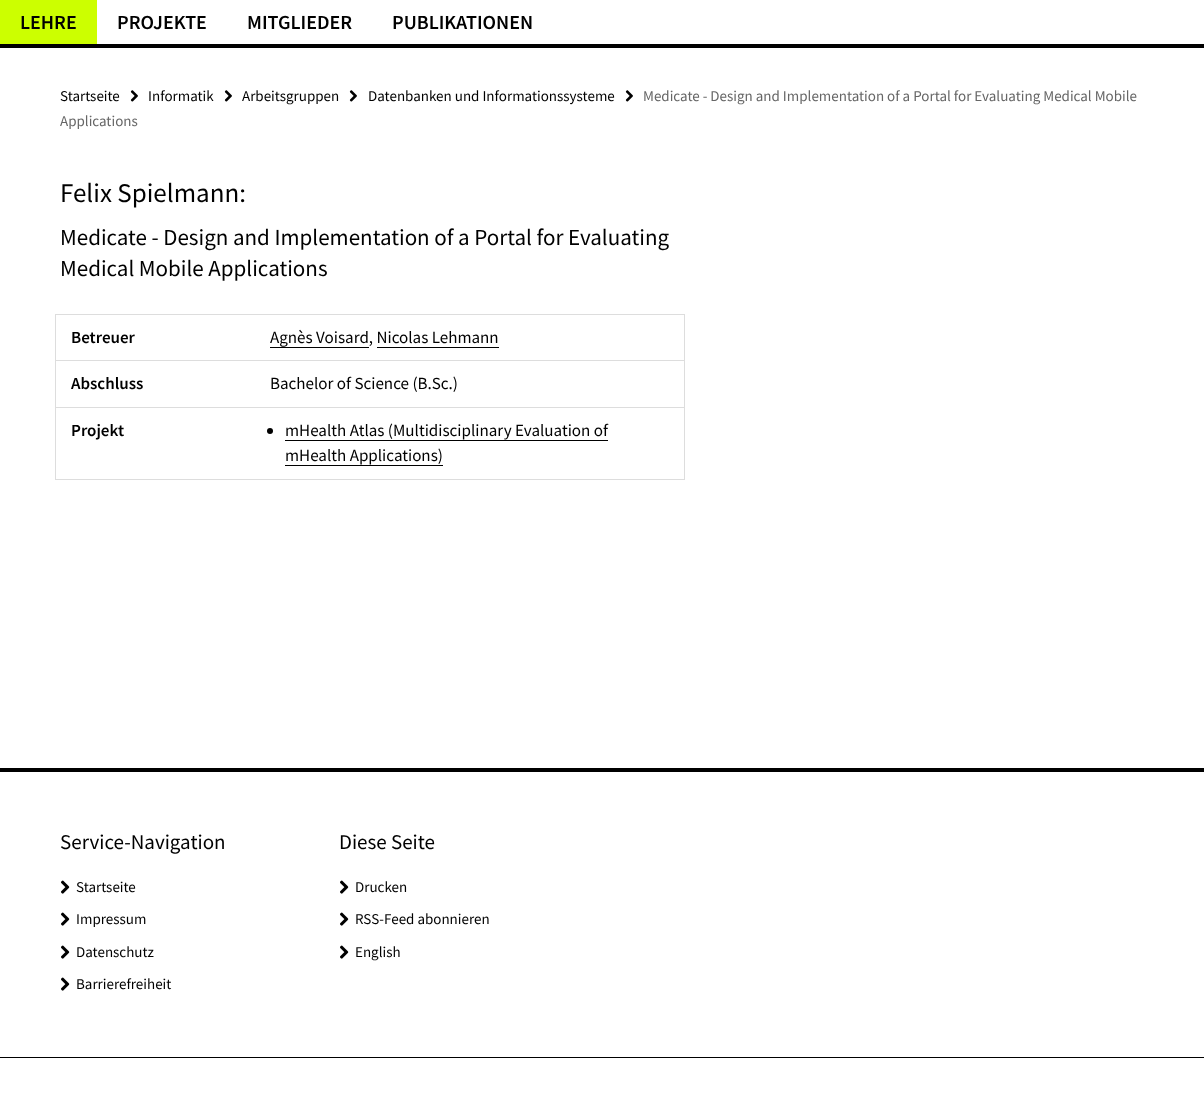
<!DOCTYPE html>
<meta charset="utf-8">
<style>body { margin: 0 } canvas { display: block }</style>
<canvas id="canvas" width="1204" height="1099"></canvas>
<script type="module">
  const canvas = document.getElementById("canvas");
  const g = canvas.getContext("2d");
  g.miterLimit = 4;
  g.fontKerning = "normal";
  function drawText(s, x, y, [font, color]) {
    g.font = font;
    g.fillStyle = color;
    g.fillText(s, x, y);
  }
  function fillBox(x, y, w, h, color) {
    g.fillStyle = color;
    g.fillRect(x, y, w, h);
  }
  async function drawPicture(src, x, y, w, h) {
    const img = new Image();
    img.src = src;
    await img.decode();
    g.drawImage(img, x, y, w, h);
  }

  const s1 = ["600 20px Source Sans Pro", "#000000"];
  const s2 = ["15px Source Sans Pro", "#000000"];
  const s3 = ["15px Source Sans Pro", "#666666"];
  const s4 = ["27px Source Sans Pro", "#000000"];
  const s5 = ["23px Source Sans Pro", "#000000"];
  const s6 = ["600 17px Source Sans Pro", "#000000"];
  const s7 = ["17px Source Sans Pro", "#000000"];
  const s8 = ["21px Source Sans Pro", "#000000"];

  fillBox(0, 0, 1204, 1099, "#FFFFFF");
  fillBox(0, 44, 1204, 4, "#000000");
  fillBox(0, 0, 97, 44, "#CCFF00");
  drawText("LEHRE", 20, 29, s1);
  drawText("PROJEKTE", 117, 29, s1);
  drawText("MITGLIEDER", 247, 29, s1);
  drawText("PUBLIKATIONEN", 392, 29, s1);
  drawText("Startseite", 60, 101, s2);
  await drawPicture("pic1.png", 130, 90, 8, 12);
  drawText("Informatik", 148, 101, s2);
  await drawPicture("pic1.png", 224, 90, 8, 12);
  drawText("Arbeitsgruppen", 242, 101, s2);
  await drawPicture("pic1.png", 349, 90, 8, 12);
  drawText("Datenbanken und Informationssysteme", 368, 101, s2);
  await drawPicture("pic1.png", 625, 90, 8, 12);
  drawText("Medicate - Design and Implementation of a Portal for Evaluating Medical Mobile", 643, 101, s3);
  drawText("Applications", 60, 126, s3);
  drawText("Felix Spielmann:", 60, 202, s4);
  drawText("Medicate - Design and Implementation of a Portal for Evaluating", 60, 245, s5);
  drawText("Medical Mobile Applications", 60, 276, s5);
  g.strokeStyle = "#DDDDDD";
  g.strokeRect(55.5, 314.5, 629, 46);
  drawText("Betreuer", 71, 343, s6);
  drawText("Agnès Voisard, Nicolas Lehmann", 270, 343, s7);
  fillBox(270, 347, 99, 1, "#000000");
  fillBox(377, 347, 122, 1, "#000000");
  g.strokeRect(55.5, 360.5, 629, 47);
  drawText("Abschluss", 71, 389, s6);
  drawText("Bachelor of Science (B.Sc.)", 270, 389, s7);
  g.strokeRect(55.5, 407.5, 629, 72);
  drawText("Projekt", 71, 436, s6);
  g.beginPath();
  g.arc(270, 431, 3, 0, Math.PI * 2);
  g.fill();
  drawText("mHealth Atlas (Multidisciplinary Evaluation of", 285, 436, s7);
  fillBox(285, 440, 323, 1, "#000000");
  drawText("mHealth Applications)", 285, 461, s7);
  fillBox(285, 465, 158, 1, "#000000");
  fillBox(0, 768, 1204, 4, "#000000");
  fillBox(0, 1057, 1204, 1, "#000000");
  drawText("Service-Navigation", 60, 849, s8);
  await drawPicture("pic2.png", 61, 880, 9, 14);
  drawText("Startseite", 76, 892, s2);
  await drawPicture("pic2.png", 61, 912, 9, 14);
  drawText("Impressum", 76, 924, s2);
  await drawPicture("pic2.png", 61, 945, 9, 14);
  drawText("Datenschutz", 76, 957, s2);
  await drawPicture("pic2.png", 61, 977, 9, 14);
  drawText("Barrierefreiheit", 76, 989, s2);
  drawText("Diese Seite", 339, 849, s8);
  await drawPicture("pic2.png", 340, 880, 9, 14);
  drawText("Drucken", 355, 892, s2);
  await drawPicture("pic2.png", 340, 912, 9, 14);
  drawText("RSS-Feed abonnieren", 355, 924, s2);
  await drawPicture("pic2.png", 340, 945, 9, 14);
  drawText("English", 355, 957, s2);
</script>
